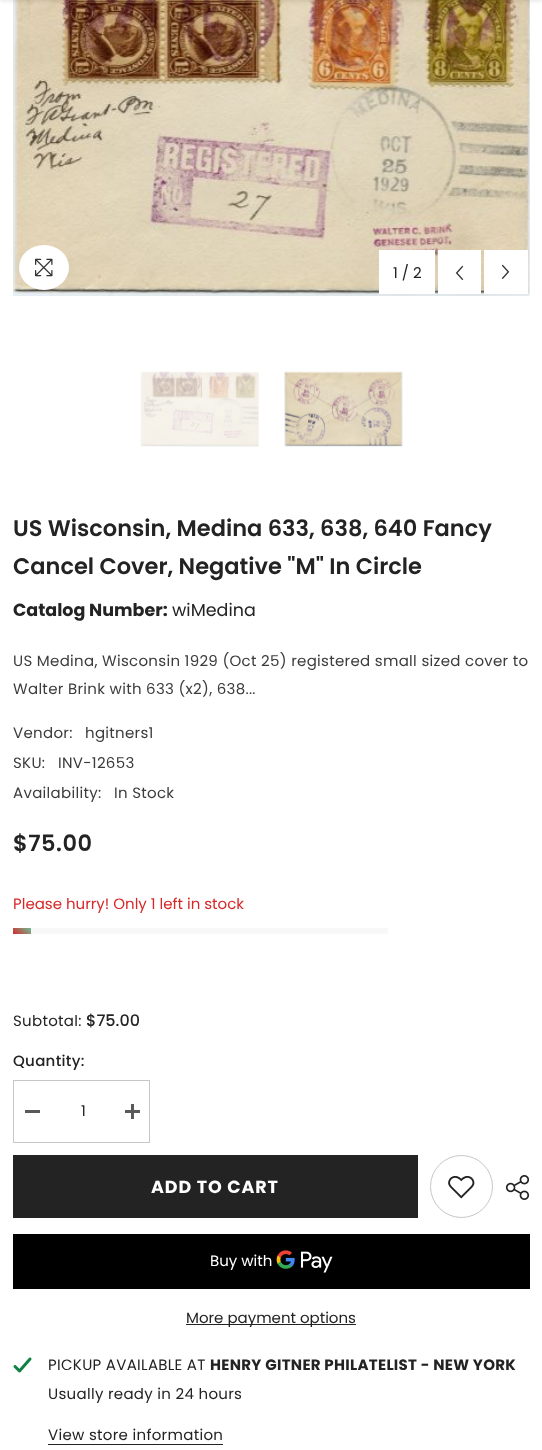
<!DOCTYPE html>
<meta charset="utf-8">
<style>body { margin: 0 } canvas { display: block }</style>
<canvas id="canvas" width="542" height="1450"></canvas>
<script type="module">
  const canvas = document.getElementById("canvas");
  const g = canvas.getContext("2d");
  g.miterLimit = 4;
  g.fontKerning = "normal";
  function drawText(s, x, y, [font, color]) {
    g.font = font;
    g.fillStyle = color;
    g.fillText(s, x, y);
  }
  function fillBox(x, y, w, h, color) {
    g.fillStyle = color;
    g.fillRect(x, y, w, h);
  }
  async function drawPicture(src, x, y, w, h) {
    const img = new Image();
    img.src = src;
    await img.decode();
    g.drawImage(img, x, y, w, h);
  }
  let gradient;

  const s1 = ["15px Poppins", "#232323"];
  const s2 = ["600 22.5px Poppins", "#232323"];
  const s3 = ["bold 17.5px Poppins", "#232323"];
  const s4 = ["17.5px Poppins", "#232323"];
  const s5 = ["15px Poppins", "#3C3C3C"];
  const s6 = ["15px Poppins", "#D62828"];
  const s7 = ["500 16px Poppins", "#232323"];
  const s8 = ["500 15px Poppins", "#232323"];
  const s9 = ["bold 17.5px Poppins", "#FFFFFF"];
  const s10 = ["15px Poppins", "#FFFFFF"];
  const s11 = ["bold 15px Poppins", "#232323"];

  fillBox(0, 0, 542, 1450, "#FFFFFF");
  await drawPicture("pic2.png", 13, 0, 517, 296);
  g.fillStyle = "rgba(0, 0, 0, 0.1)";
  g.filter = "blur(2px)";
  g.beginPath();
  g.rect(0, -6, 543, 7);
  g.fill();
  g.filter = "none";
  g.fillStyle = "#FFFFFF";
  g.beginPath();
  g.ellipse(44, 267.5, 25, 22.5, 0, 0, Math.PI * 2);
  g.fill();
  await drawPicture("pic1.png", 35, 258, 18, 19);
  fillBox(379, 250, 56, 44, "#FFFFFF");
  drawText("1 / 2", 393, 278, s1);
  fillBox(438, 250, 43, 44, "#FFFFFF");
  await drawPicture("pic3.png", 455, 265, 9, 15);
  fillBox(484, 250, 44, 44, "#FFFFFF");
  await drawPicture("pic4.png", 501, 264, 9, 15);
  await drawPicture("pic5.png", 140, 371, 119, 76);
  await drawPicture("pic6.png", 284, 371, 119, 76);
  drawText("US Wisconsin, Medina 633, 638, 640 Fancy", 13, 536, s2);
  drawText("Cancel Cover, Negative \"M\" In Circle", 13, 574, s2);
  drawText("Catalog Number:", 13, 616, s3);
  drawText("wiMedina", 172, 616, s4);
  g.letterSpacing = "0.3px";
  drawText("US Medina, Wisconsin 1929 (Oct 25) registered small sized cover to", 13, 666, s5);
  drawText("Walter Brink with 633 (x2), 638...", 13, 694, s5);
  drawText("Vendor:", 13, 738, s5);
  drawText("hgitners1", 85, 738, s5);
  drawText("SKU:", 13, 768, s5);
  drawText("INV-12653", 58, 768, s5);
  drawText("Availability:", 13, 798, s5);
  drawText("In Stock", 114, 798, s5);
  g.letterSpacing = "0.5px";
  drawText("$75.00", 13, 851, s2);
  g.letterSpacing = "0px";
  drawText("Please hurry! Only 1 left in stock", 13, 909, s6);
  fillBox(31, 928, 357, 6, "#F8F8F8");
  gradient = g.createLinearGradient(16, 937, 28, 924);
  gradient.addColorStop(0, "#D62828");
  gradient.addColorStop(1, "#69C69C");
  g.fillStyle = gradient;
  g.fillRect(13, 928, 18, 6);
  g.letterSpacing = "0.3px";
  drawText("Subtotal:", 13, 1026, s1);
  g.letterSpacing = "0px";
  drawText("$75.00", 86, 1026, s7);
  g.letterSpacing = "0.3px";
  drawText("Quantity:", 13, 1066, s8);
  g.strokeStyle = "#C7C7C7";
  g.strokeRect(13.5, 1080.5, 136, 62);
  fillBox(25, 1110, 15, 3, "#5A5A5A");
  drawText("1", 81, 1116, s1);
  fillBox(125, 1110, 15, 3, "#5A5A5A");
  fillBox(131, 1104, 3, 15, "#5A5A5A");
  fillBox(13, 1155, 405, 63, "#232323");
  g.letterSpacing = "0.9px";
  drawText("ADD TO CART", 151, 1193, s9);
  g.beginPath();
  g.arc(461.5, 1186.5, 31, 0, Math.PI * 2);
  g.stroke();
  await drawPicture("pic7.png", 448, 1175, 27, 24);
  await drawPicture("pic8.png", 505, 1175, 25, 25);
  fillBox(13, 1234, 517, 55, "#000000");
  g.letterSpacing = "0px";
  drawText("Buy with", 210, 1266, s10);
  await drawPicture("pic9.png", 276, 1250, 57, 23);
  fillBox(186, 1324, 170, 1, "#232323");
  drawText("More payment options", 186, 1323, s1);
  await drawPicture("pic10.png", 13, 1357, 19, 16);
  g.letterSpacing = "0.3px";
  drawText("PICKUP AVAILABLE AT", 48, 1370, s1);
  drawText("HENRY GITNER PHILATELIST - NEW YORK", 210, 1370, s11);
  drawText("Usually ready in 24 hours", 48, 1399, s1);
  drawText("View store information", 48, 1440, s1);
  fillBox(48, 1444, 175, 1, "#232323");
</script>
